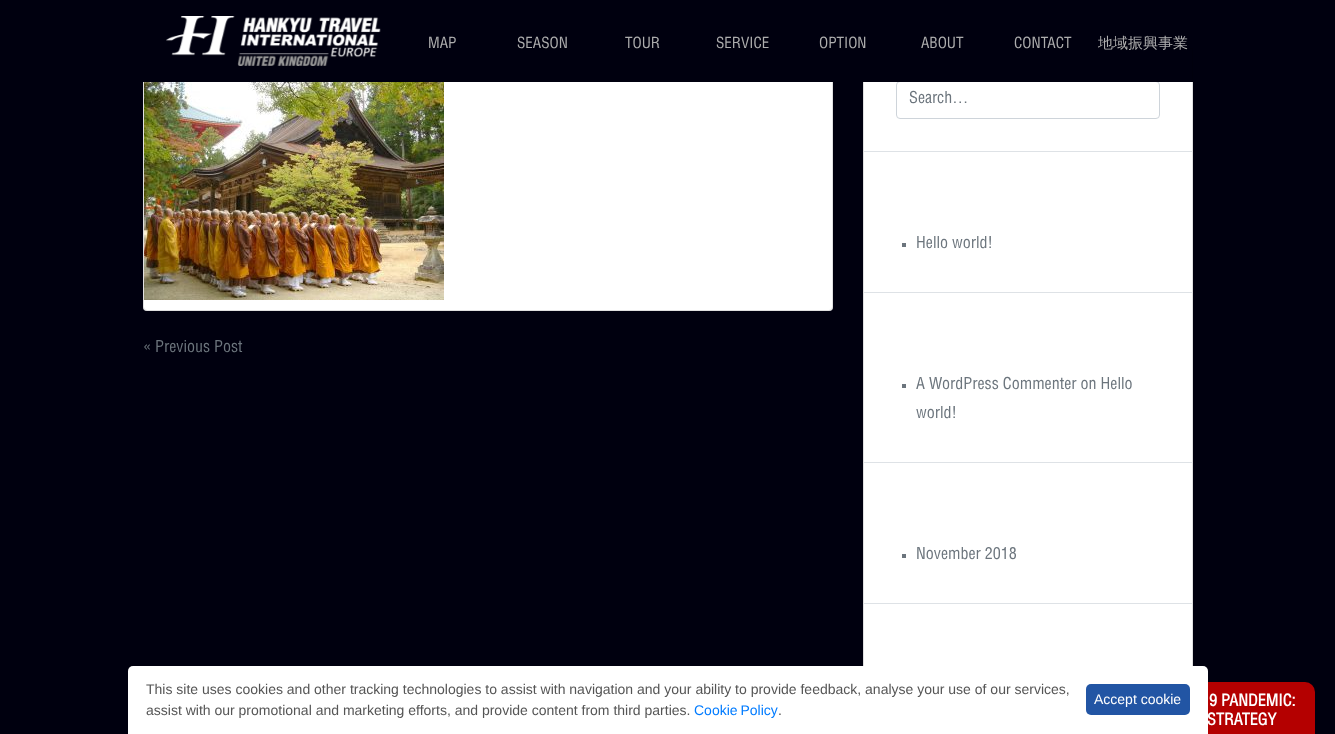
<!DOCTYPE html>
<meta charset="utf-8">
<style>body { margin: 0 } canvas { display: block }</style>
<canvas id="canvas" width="1335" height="734"></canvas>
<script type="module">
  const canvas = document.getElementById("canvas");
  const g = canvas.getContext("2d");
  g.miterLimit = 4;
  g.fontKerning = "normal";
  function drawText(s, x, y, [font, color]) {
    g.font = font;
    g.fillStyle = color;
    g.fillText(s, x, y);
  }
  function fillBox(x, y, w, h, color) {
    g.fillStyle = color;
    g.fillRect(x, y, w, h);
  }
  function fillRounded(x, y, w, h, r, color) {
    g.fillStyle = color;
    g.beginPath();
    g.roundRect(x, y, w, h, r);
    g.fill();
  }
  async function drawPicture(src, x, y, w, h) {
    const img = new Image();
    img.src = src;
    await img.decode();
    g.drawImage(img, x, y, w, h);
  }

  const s1 = ["15px Helvetica", "#ADADAE"];
  const s2 = ["500 15px WenQuanYi Zen Hei", "#ADADAE"];
  const s3 = ["16px Helvetica", "#6C757D"];
  const s4 = ["14px Liberation Sans", "#555555"];
  const s5 = ["14px Liberation Sans", "#007BFF"];
  const s6 = ["14px Liberation Sans", "#FFFFFF"];
  const s7 = ["bold 16px Helvetica", "#FFFFFF"];

  fillBox(0, 0, 1335, 734, "#00000F");
  fillRounded(143, 0, 690, 311, 4, "#FFFFFF");
  g.beginPath();
  g.roundRect(143.5, 0.5, 689, 310, 3.5);
  g.strokeStyle = "rgba(0, 0, 0, 0.12)";
  g.stroke();
  fillBox(863, 82, 330, 584, "#FFFFFF");
  g.strokeRect(863.5, 48.5, 329, 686);
  g.beginPath();
  g.roundRect(896.5, 81.5, 263, 37, 3.5);
  g.strokeStyle = "#CED4DA";
  g.stroke();
  fillBox(143, 0, 1016, 82, "#00000F");
  await drawPicture("pic1.png", 166, 16, 215, 50);
  drawText("MAP", 428, 48, s1);
  drawText("SEASON", 517, 48, s1);
  drawText("TOUR", 625, 48, s1);
  drawText("SERVICE", 716, 48, s1);
  drawText("OPTION", 819, 48, s1);
  drawText("ABOUT", 921, 48, s1);
  drawText("CONTACT", 1014, 48, s1);
  drawText("地域振興事業", 1098, 48, s2);
  await drawPicture("pic2.png", 144, 82, 300, 218);
  drawText("« Previous Post", 143, 352, s3);
  fillBox(864, 151, 328, 1, "#DEE2E6");
  drawText("Search…", 909, 103, s3);
  fillBox(864, 292, 328, 1, "#DEE2E6");
  fillBox(902, 243, 4, 4, "#6C757D");
  drawText("Hello world!", 916, 248, s3);
  fillBox(864, 462, 328, 1, "#DEE2E6");
  fillBox(902, 384, 4, 4, "#6C757D");
  drawText("A WordPress Commenter on Hello", 916, 389, s3);
  drawText("world!", 916, 418, s3);
  fillBox(864, 603, 328, 1, "#DEE2E6");
  fillBox(902, 554, 4, 4, "#6C757D");
  drawText("November 2018", 916, 559, s3);
  g.fillStyle = "#B40000";
  g.beginPath();
  g.roundRect(1135, 682, 180, 52, [10, 10, 0, 0]);
  g.fill();
  g.fillStyle = "#FFFFFF";
  g.beginPath();
  g.roundRect(128, 666, 1080, 68, [5, 5, 0, 0]);
  g.fill();
  drawText("This site uses cookies and other tracking technologies to assist with navigation and your ability to provide feedback, analyse your use of our services,", 146, 694, s4);
  drawText("assist with our promotional and marketing efforts, and provide content from third parties.", 146, 715, s4);
  g.wordSpacing = "-1px";
  drawText("Cookie Policy", 694, 715, s5);
  g.wordSpacing = "0px";
  drawText(".", 778, 715, s4);
  fillRounded(1086, 684, 104, 31, 5, "#2255A4");
  drawText("Accept cookie", 1094, 704, s6);
  drawText("9 PANDEMIC:", 1209, 706, s7);
  drawText("STRATEGY", 1207, 725, s7);
</script>
